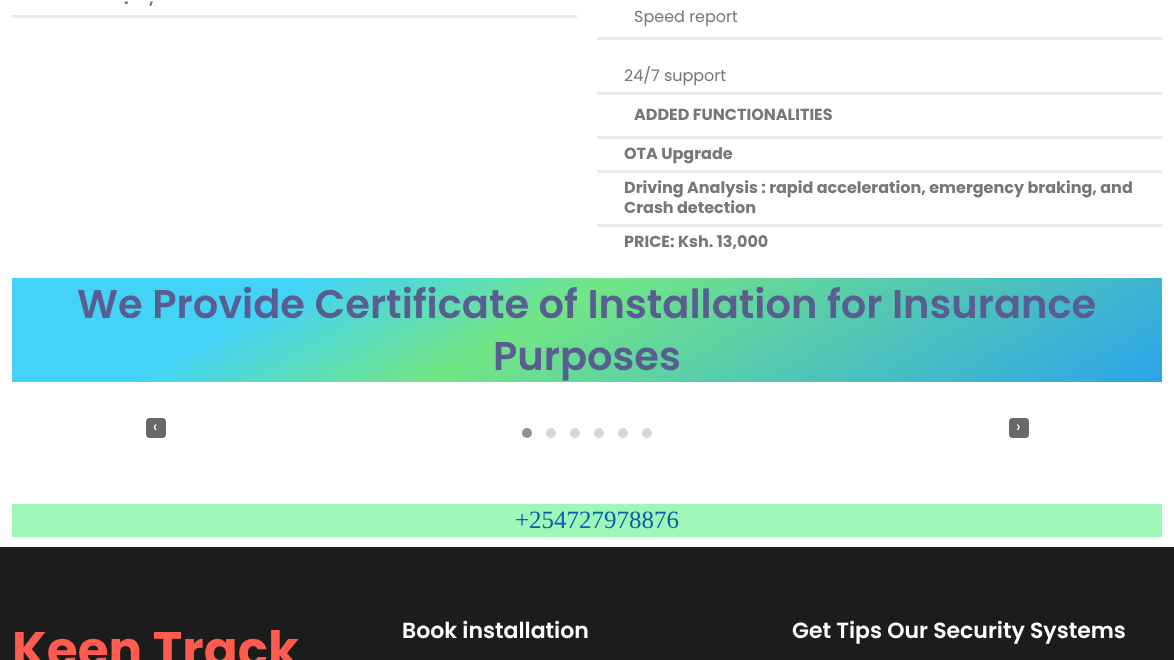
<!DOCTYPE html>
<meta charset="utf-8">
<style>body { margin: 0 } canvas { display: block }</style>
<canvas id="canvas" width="1174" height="660"></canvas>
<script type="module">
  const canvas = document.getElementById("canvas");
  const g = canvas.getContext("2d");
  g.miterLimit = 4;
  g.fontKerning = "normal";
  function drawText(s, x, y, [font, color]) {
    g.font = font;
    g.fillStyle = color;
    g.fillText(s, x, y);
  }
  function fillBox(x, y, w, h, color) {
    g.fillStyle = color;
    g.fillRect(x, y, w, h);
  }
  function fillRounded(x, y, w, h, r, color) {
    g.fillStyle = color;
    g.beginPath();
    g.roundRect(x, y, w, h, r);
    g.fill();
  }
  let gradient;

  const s1 = ["bold 16px Poppins", "#777777"];
  const s2 = ["16px Poppins", "#777777"];
  const s3 = ["600 40px Poppins", "#595D8F"];
  const s4 = ["16px Poppins", "#FFFFFF"];
  const s5 = ["25px Liberation Serif", "#0860A7"];
  const s6 = ["bold 50px Poppins", "#FF5B4F"];
  const s7 = ["600 22px Poppins", "#FFFFFF"];

  fillBox(0, 0, 1174, 660, "#FFFFFF");
  fillBox(12, 15, 565, 3, "#E7EAEF");
  drawText(".", 124, 4, s1);
  drawText(",", 149, 4, s1);
  fillBox(597, 37, 565, 3, "#E7EAEF");
  drawText("Speed report", 634, 22, s2);
  fillBox(597, 92, 565, 3, "#E7EAEF");
  drawText("24/7 support", 624, 81, s2);
  fillBox(597, 136, 565, 3, "#E7EAEF");
  drawText("ADDED FUNCTIONALITIES", 634, 120, s1);
  fillBox(597, 170, 565, 3, "#E7EAEF");
  drawText("OTA Upgrade", 624, 159, s1);
  fillBox(597, 224, 565, 3, "#E7EAEF");
  drawText("Driving Analysis : rapid acceleration, emergency braking, and", 624, 193, s1);
  drawText("Crash detection", 624, 213, s1);
  drawText("PRICE: Ksh. 13,000", 624, 247, s1);
  gradient = g.createLinearGradient(421, 42, 753, 618);
  gradient.addColorStop(0.23, "#44D3F6");
  gradient.addColorStop(0.45, "#72E584");
  gradient.addColorStop(1, "#2CA4EB");
  g.fillStyle = gradient;
  g.fillRect(12, 278, 1150, 104);
  drawText("We Provide Certificate of Installation for Insurance", 77, 318, s3);
  drawText("Purposes", 493, 370, s3);
  fillRounded(146, 418, 20, 20, 4, "#6A6969");
  drawText("‹", 153, 432, s4);
  fillRounded(1009, 418, 20, 20, 4, "#6A6969");
  drawText("›", 1016, 432, s4);
  g.fillStyle = "#869791";
  g.beginPath();
  g.arc(527, 433, 5, 0, Math.PI * 2);
  g.fill();
  g.fillStyle = "#D6D6D6";
  g.beginPath();
  g.arc(551, 433, 5, 0, Math.PI * 2);
  g.fill();
  g.beginPath();
  g.arc(575, 433, 5, 0, Math.PI * 2);
  g.fill();
  g.beginPath();
  g.arc(599, 433, 5, 0, Math.PI * 2);
  g.fill();
  g.beginPath();
  g.arc(623, 433, 5, 0, Math.PI * 2);
  g.fill();
  g.beginPath();
  g.arc(647, 433, 5, 0, Math.PI * 2);
  g.fill();
  fillBox(12, 504, 1150, 33, "#9EF6B8");
  drawText("+254727978876", 515, 528, s5);
  fillBox(0, 547, 1174, 113, "#1C1C1C");
  drawText("Keen Track", 12, 667, s6);
  drawText("Book installation", 402, 638, s7);
  drawText("Get Tips Our Security Systems", 792, 638, s7);
</script>
